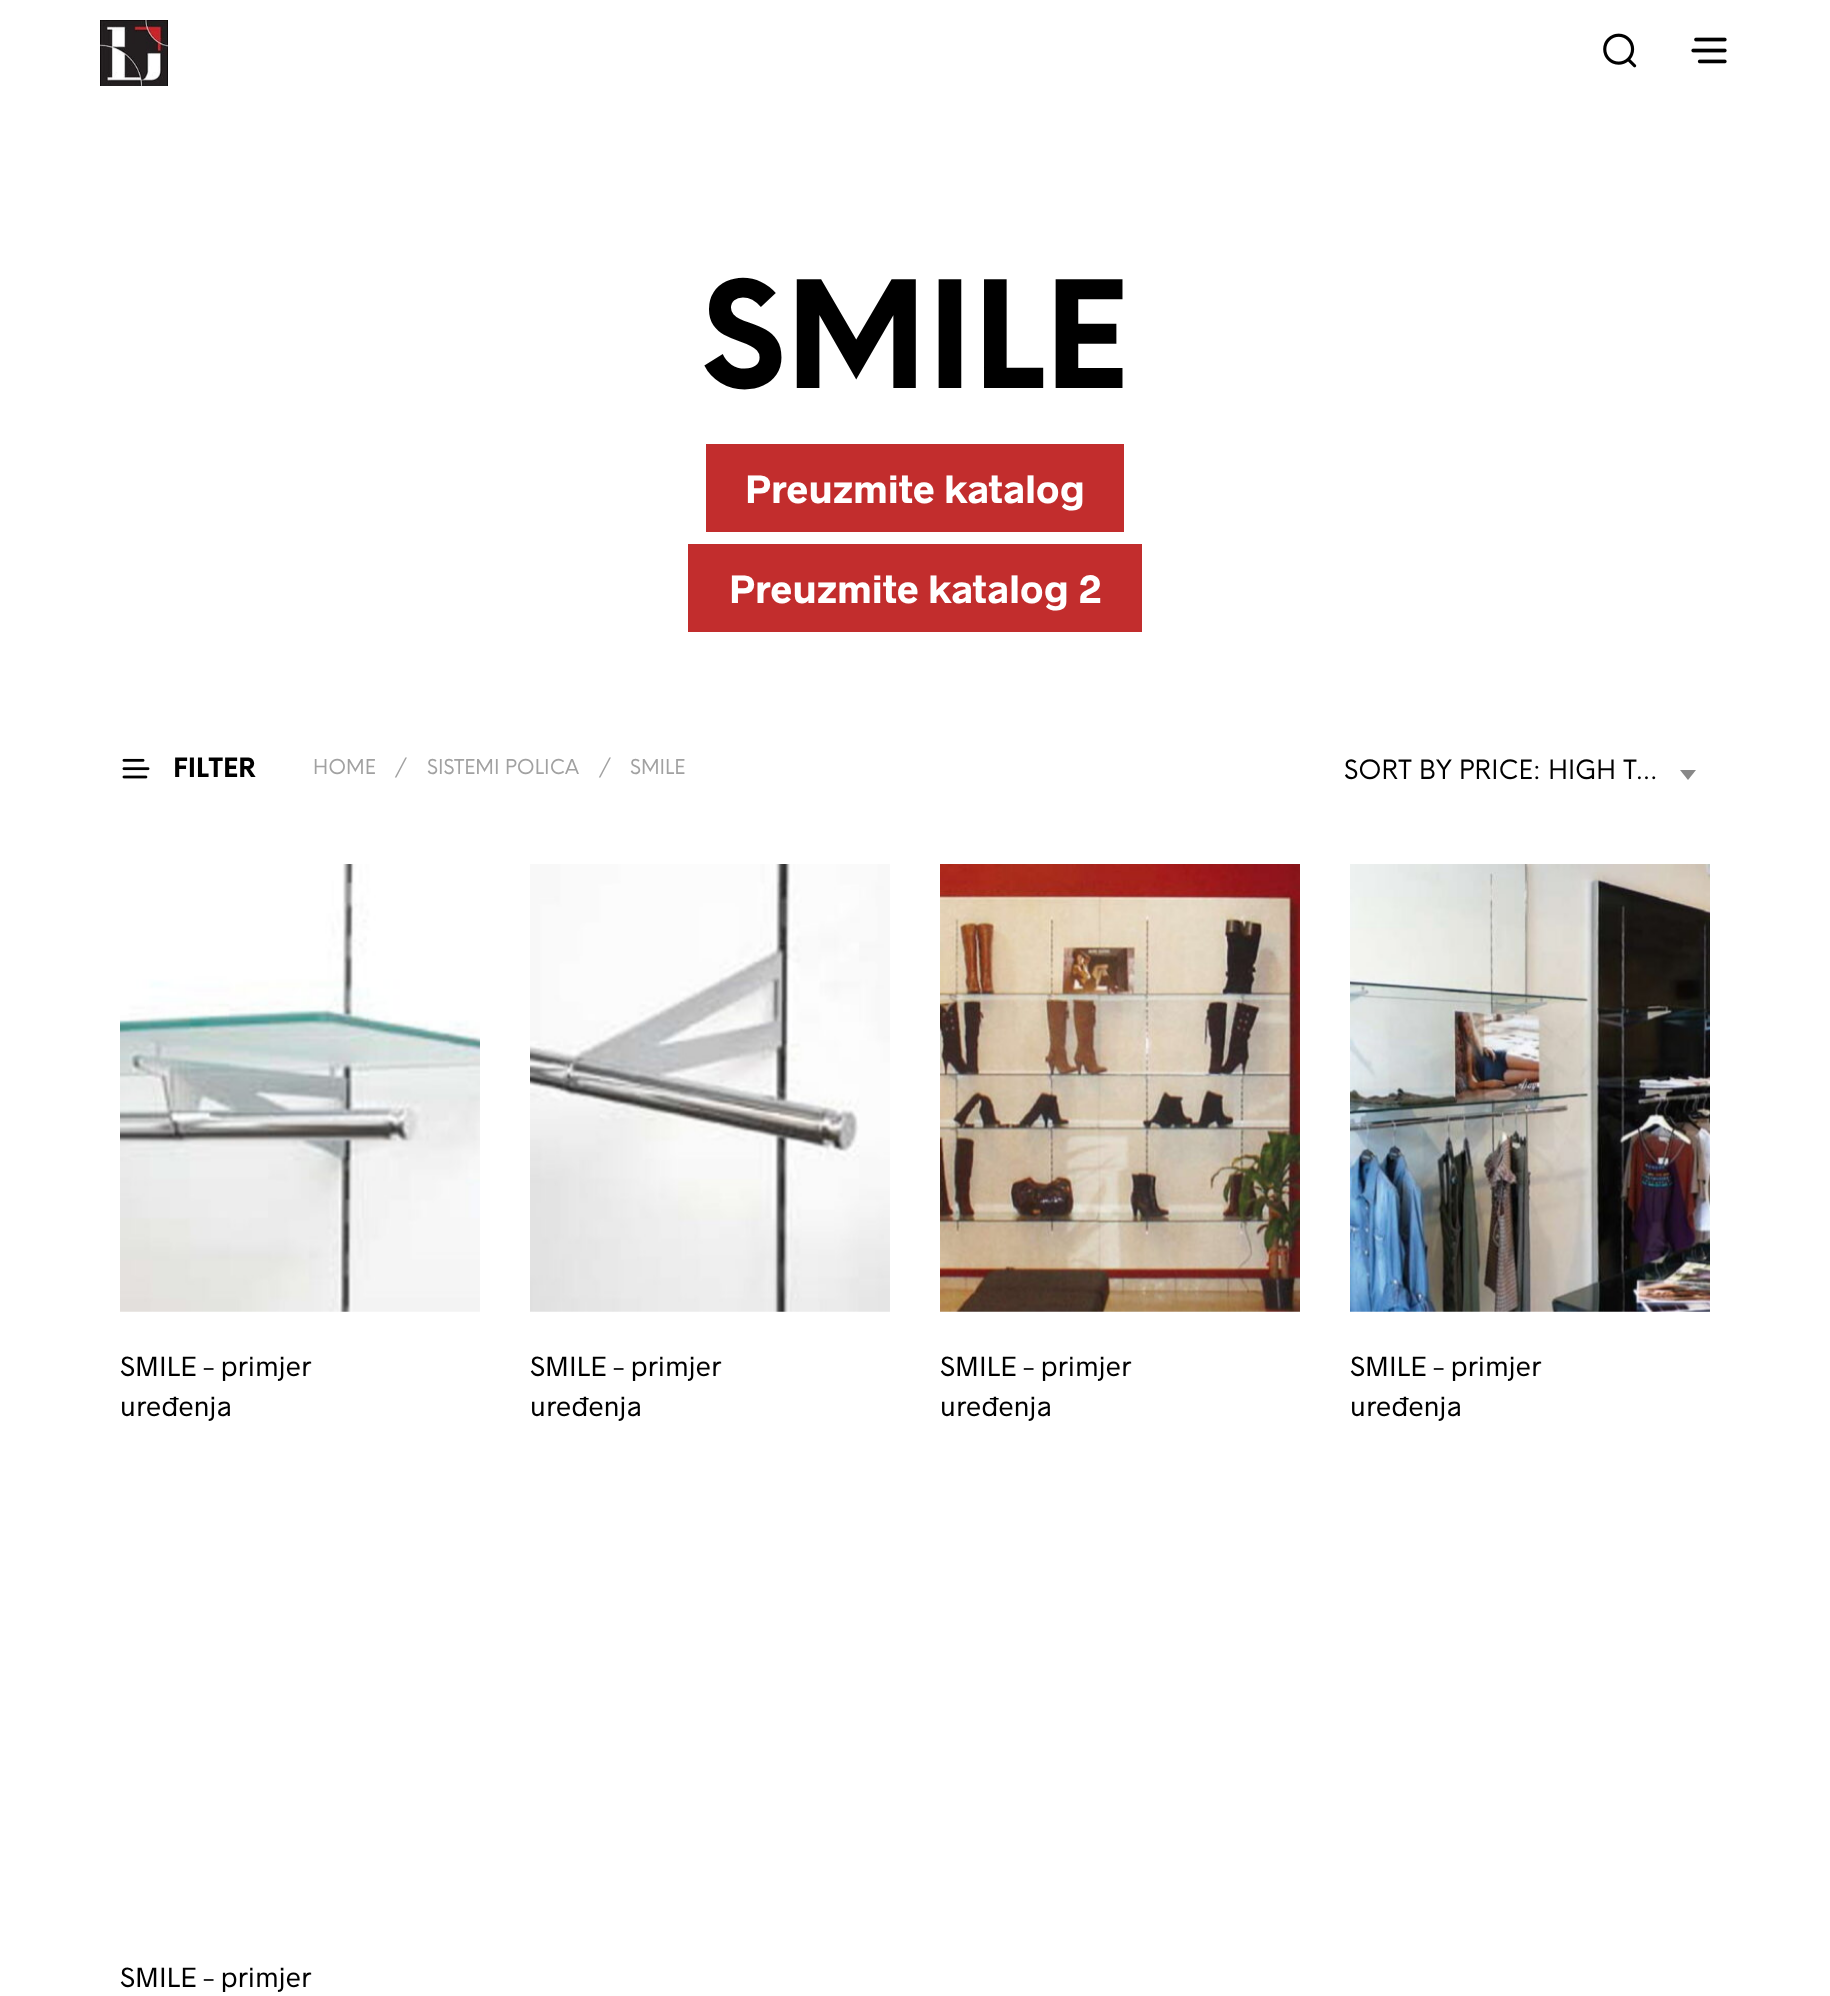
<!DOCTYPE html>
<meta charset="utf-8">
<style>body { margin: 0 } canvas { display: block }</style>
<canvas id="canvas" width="1830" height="1996"></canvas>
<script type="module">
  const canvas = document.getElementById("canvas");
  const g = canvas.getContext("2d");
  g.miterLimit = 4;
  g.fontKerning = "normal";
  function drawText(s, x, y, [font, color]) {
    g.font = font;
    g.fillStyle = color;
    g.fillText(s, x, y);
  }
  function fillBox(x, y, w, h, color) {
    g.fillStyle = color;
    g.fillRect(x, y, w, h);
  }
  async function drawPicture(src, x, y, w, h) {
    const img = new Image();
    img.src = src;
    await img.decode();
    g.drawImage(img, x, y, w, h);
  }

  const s1 = ["bold 145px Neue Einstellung", "#000000"];
  const s2 = ["bold 40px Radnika", "#FFFFFF"];
  const s3 = ["bold 26px Neue Einstellung", "#000000"];
  const s4 = ["20px Neue Einstellung", "#A1A1A1"];
  const s5 = ["26px Neue Einstellung", "#000000"];
  const s6 = ["28px Radnika", "#000000"];

  fillBox(0, 0, 1830, 1996, "#FFFFFF");
  await drawPicture("pic1.png", 100, 20, 68, 66);
  await drawPicture("pic2.png", 1603, 33, 34, 35);
  await drawPicture("pic3.png", 1691, 37, 36, 27);
  drawText("SMILE", 701, 388, s1);
  fillBox(706, 444, 418, 88, "#C22D2D");
  drawText("Preuzmite katalog", 745, 503, s2);
  fillBox(688, 544, 454, 88, "#C22D2D");
  drawText("Preuzmite katalog 2", 729, 603, s2);
  await drawPicture("pic4.png", 122, 758, 28, 21);
  drawText("FILTER", 173, 777, s3);
  drawText("HOME", 313, 774, s4);
  drawText("/", 395, 774, s4);
  drawText("SISTEMI POLICA", 427, 774, s4);
  drawText("/", 599, 774, s4);
  drawText("SMILE", 630, 774, s4);
  drawText("SORT BY PRICE: HIGH T…", 1344, 779, s5);
  g.fillStyle = "#888888";
  g.beginPath();
  g.moveTo(1680, 770);
  g.lineTo(1696, 770);
  g.lineTo(1688, 780);
  g.closePath();
  g.fill();
  await drawPicture("pic5.png", 120, 864, 360, 448);
  drawText("SMILE – primjer", 120, 1376, s6);
  drawText("uređenja", 120, 1416, s6);
  await drawPicture("pic6.png", 530, 864, 360, 448);
  drawText("SMILE – primjer", 530, 1376, s6);
  drawText("uređenja", 530, 1416, s6);
  await drawPicture("pic7.png", 940, 864, 360, 448);
  drawText("SMILE – primjer", 940, 1376, s6);
  drawText("uređenja", 940, 1416, s6);
  await drawPicture("pic8.png", 1350, 864, 360, 448);
  drawText("SMILE – primjer", 1350, 1376, s6);
  drawText("uređenja", 1350, 1416, s6);
  drawText("SMILE – primjer", 120, 1987, s6);
</script>
